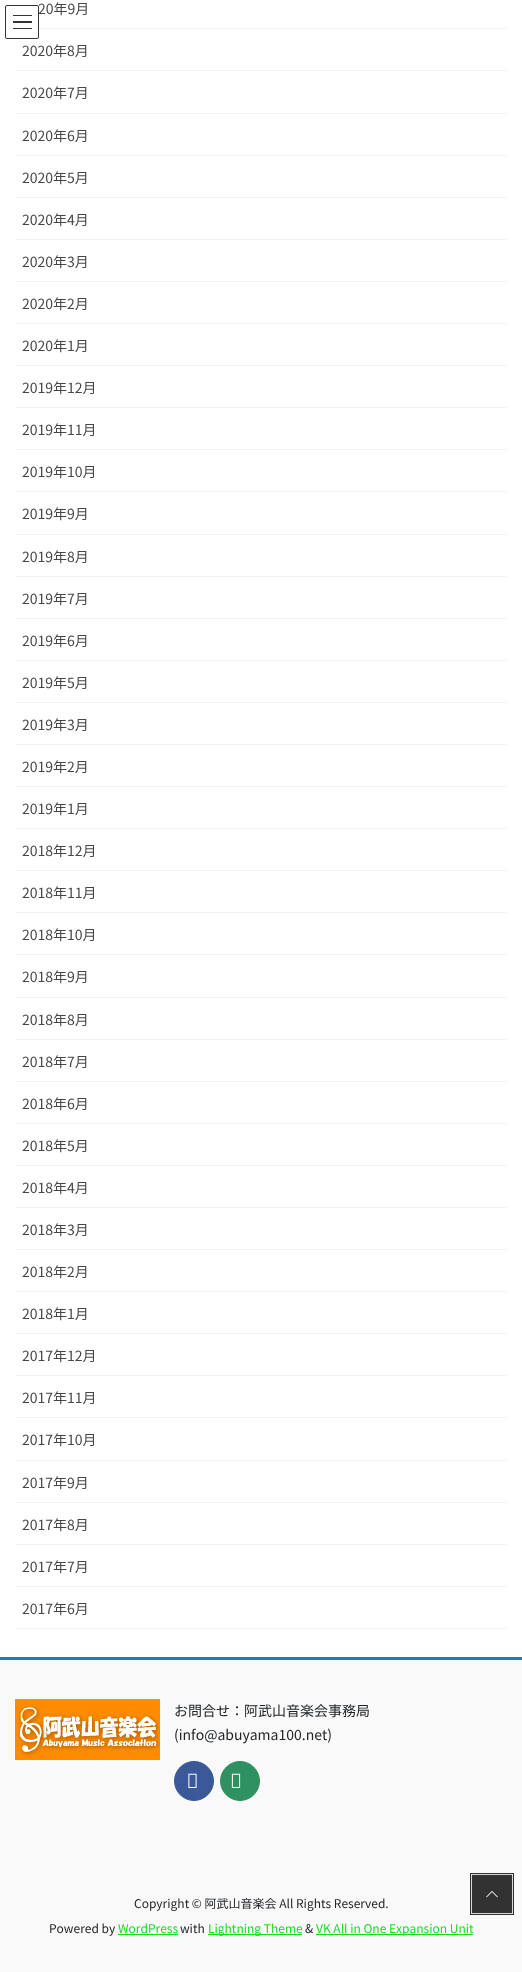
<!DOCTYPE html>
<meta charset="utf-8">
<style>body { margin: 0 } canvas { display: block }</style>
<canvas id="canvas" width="522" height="1972"></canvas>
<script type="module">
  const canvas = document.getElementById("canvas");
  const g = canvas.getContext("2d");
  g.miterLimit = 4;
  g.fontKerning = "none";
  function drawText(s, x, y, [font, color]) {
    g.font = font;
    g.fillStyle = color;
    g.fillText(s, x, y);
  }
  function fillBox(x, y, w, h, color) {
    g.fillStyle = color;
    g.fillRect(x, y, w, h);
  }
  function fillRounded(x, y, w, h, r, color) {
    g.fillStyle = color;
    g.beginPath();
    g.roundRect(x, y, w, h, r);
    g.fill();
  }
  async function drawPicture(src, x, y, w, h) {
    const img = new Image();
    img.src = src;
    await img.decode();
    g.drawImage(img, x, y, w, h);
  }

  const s1 = ["14px Noto Sans JP", "#464646"];
  const s2 = ["14px Noto Sans JP", "#212529"];
  const s3 = ["12px Noto Sans JP", "#212529"];
  const s4 = ["12px Noto Sans JP", "#16DD1C"];

  fillBox(0, 0, 522, 1972, "#FFFFFF");
  fillBox(15, 28, 492, 1, "#F2F2F2");
  drawText("20年9月", 38, 14, s1);
  fillBox(15, 70, 492, 1, "#F2F2F2");
  drawText("2020年8月", 22, 56, s1);
  fillBox(15, 113, 492, 1, "#F2F2F2");
  drawText("2020年7月", 22, 98, s1);
  fillBox(15, 155, 492, 1, "#F2F2F2");
  drawText("2020年6月", 22, 141, s1);
  fillBox(15, 197, 492, 1, "#F2F2F2");
  drawText("2020年5月", 22, 183, s1);
  fillBox(15, 239, 492, 1, "#F2F2F2");
  drawText("2020年4月", 22, 225, s1);
  fillBox(15, 281, 492, 1, "#F2F2F2");
  drawText("2020年3月", 22, 267, s1);
  fillBox(15, 323, 492, 1, "#F2F2F2");
  drawText("2020年2月", 22, 309, s1);
  fillBox(15, 365, 492, 1, "#F2F2F2");
  drawText("2020年1月", 22, 351, s1);
  fillBox(15, 407, 492, 1, "#F2F2F2");
  drawText("2019年12月", 22, 393, s1);
  fillBox(15, 449, 492, 1, "#F2F2F2");
  drawText("2019年11月", 22, 435, s1);
  fillBox(15, 491, 492, 1, "#F2F2F2");
  drawText("2019年10月", 22, 477, s1);
  fillBox(15, 534, 492, 1, "#F2F2F2");
  drawText("2019年9月", 22, 519, s1);
  fillBox(15, 576, 492, 1, "#F2F2F2");
  drawText("2019年8月", 22, 562, s1);
  fillBox(15, 618, 492, 1, "#F2F2F2");
  drawText("2019年7月", 22, 604, s1);
  fillBox(15, 660, 492, 1, "#F2F2F2");
  drawText("2019年6月", 22, 646, s1);
  fillBox(15, 702, 492, 1, "#F2F2F2");
  drawText("2019年5月", 22, 688, s1);
  fillBox(15, 744, 492, 1, "#F2F2F2");
  drawText("2019年3月", 22, 730, s1);
  fillBox(15, 786, 492, 1, "#F2F2F2");
  drawText("2019年2月", 22, 772, s1);
  fillBox(15, 828, 492, 1, "#F2F2F2");
  drawText("2019年1月", 22, 814, s1);
  fillBox(15, 870, 492, 1, "#F2F2F2");
  drawText("2018年12月", 22, 856, s1);
  fillBox(15, 912, 492, 1, "#F2F2F2");
  drawText("2018年11月", 22, 898, s1);
  fillBox(15, 954, 492, 1, "#F2F2F2");
  drawText("2018年10月", 22, 940, s1);
  fillBox(15, 997, 492, 1, "#F2F2F2");
  drawText("2018年9月", 22, 982, s1);
  fillBox(15, 1039, 492, 1, "#F2F2F2");
  drawText("2018年8月", 22, 1025, s1);
  fillBox(15, 1081, 492, 1, "#F2F2F2");
  drawText("2018年7月", 22, 1067, s1);
  fillBox(15, 1123, 492, 1, "#F2F2F2");
  drawText("2018年6月", 22, 1109, s1);
  fillBox(15, 1165, 492, 1, "#F2F2F2");
  drawText("2018年5月", 22, 1151, s1);
  fillBox(15, 1207, 492, 1, "#F2F2F2");
  drawText("2018年4月", 22, 1193, s1);
  fillBox(15, 1249, 492, 1, "#F2F2F2");
  drawText("2018年3月", 22, 1235, s1);
  fillBox(15, 1291, 492, 1, "#F2F2F2");
  drawText("2018年2月", 22, 1277, s1);
  fillBox(15, 1333, 492, 1, "#F2F2F2");
  drawText("2018年1月", 22, 1319, s1);
  fillBox(15, 1375, 492, 1, "#F2F2F2");
  drawText("2017年12月", 22, 1361, s1);
  fillBox(15, 1417, 492, 1, "#F2F2F2");
  drawText("2017年11月", 22, 1403, s1);
  fillBox(15, 1460, 492, 1, "#F2F2F2");
  drawText("2017年10月", 22, 1445, s1);
  fillBox(15, 1502, 492, 1, "#F2F2F2");
  drawText("2017年9月", 22, 1488, s1);
  fillBox(15, 1544, 492, 1, "#F2F2F2");
  drawText("2017年8月", 22, 1530, s1);
  fillBox(15, 1586, 492, 1, "#F2F2F2");
  drawText("2017年7月", 22, 1572, s1);
  fillBox(15, 1628, 492, 1, "#F2F2F2");
  drawText("2017年6月", 22, 1614, s1);
  fillRounded(5, 5, 34, 34, 2, "rgba(255, 255, 255, 0.8)");
  fillBox(13, 15, 19, 1, "#333333");
  fillBox(13, 21, 19, 2, "#333333");
  fillBox(13, 28, 19, 1, "rgba(0, 0, 0, 0.8)");
  g.beginPath();
  g.roundRect(5.5, 5.5, 33, 33, 1.5);
  g.strokeStyle = "#333333";
  g.stroke();
  fillBox(0, 1660, 522, 312, "#F9F9F9");
  fillBox(0, 1657, 522, 3, "#167EC9");
  await drawPicture("pic1.png", 15, 1699, 145, 61);
  drawText("お問合せ：阿武山音楽会事務局", 174, 1716, s2);
  drawText("(info@abuyama100.net)", 174, 1740, s2);
  g.fillStyle = "#3B5998";
  g.beginPath();
  g.arc(194, 1781, 19.5, 0, Math.PI * 2);
  g.fill();
  g.strokeStyle = "#3B5998";
  g.stroke();
  await drawPicture("pic2.png", 188, 1773, 9, 15);
  g.fillStyle = "#2F915F";
  g.beginPath();
  g.arc(240, 1781, 19.5, 0, Math.PI * 2);
  g.fill();
  g.strokeStyle = "#2F915F";
  g.stroke();
  await drawPicture("pic3.png", 231, 1773, 10, 15);
  drawText("Copyright © 阿武山音楽会 All Rights Reserved.", 134, 1908, s3);
  drawText("Powered by", 49, 1933, s3);
  drawText("WordPress", 118, 1933, s4);
  fillBox(118, 1934, 60, 1, "#16DD1C");
  drawText("with", 180, 1933, s3);
  fillBox(208, 1934, 94, 1, "#16DD1C");
  drawText("Lightning Theme", 208, 1933, s4);
  drawText("&", 305, 1933, s3);
  fillBox(316, 1934, 157, 1, "#16DD1C");
  drawText("VK All in One Expansion Unit", 316, 1933, s4);
  g.strokeStyle = "#323232";
  g.lineWidth = 2;
  g.strokeRect(471, 1874, 42, 40);
  g.strokeStyle = "#D6D6D6";
  g.lineWidth = 1;
  g.strokeRect(471.5, 1874.5, 41, 39);
  fillBox(472, 1875, 40, 38, "#323232");
  await drawPicture("pic4.png", 486, 1891, 12, 7);
</script>
